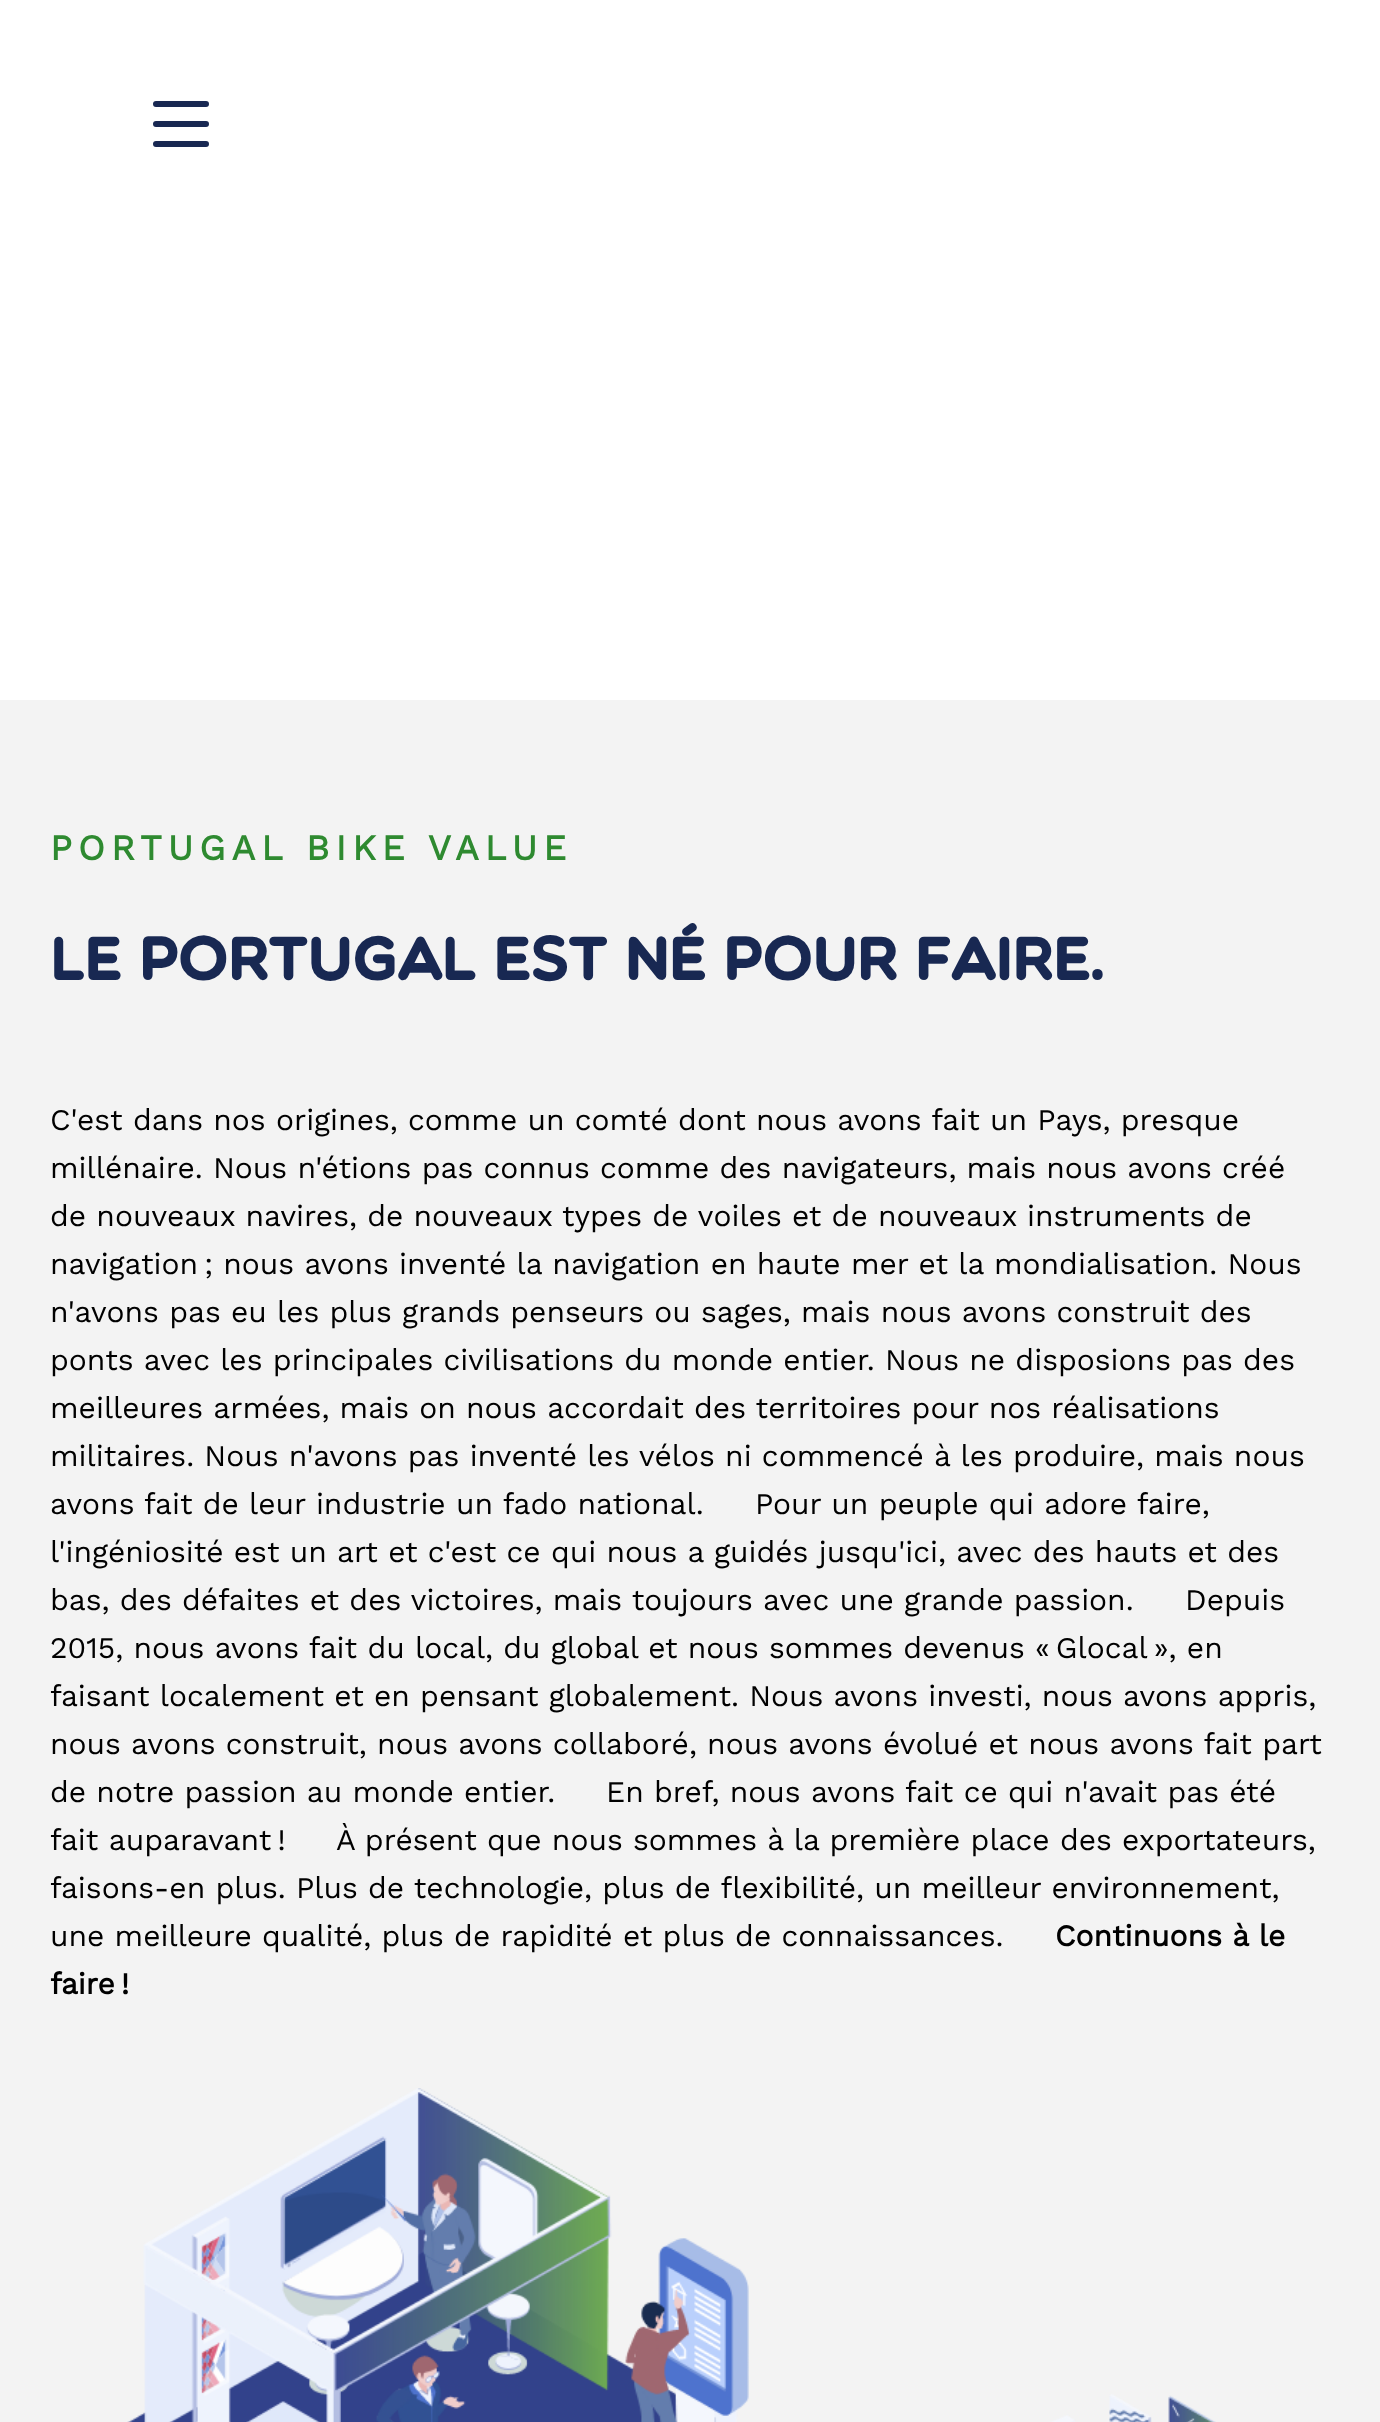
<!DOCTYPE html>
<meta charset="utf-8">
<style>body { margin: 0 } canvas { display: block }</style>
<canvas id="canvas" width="1380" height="2422"></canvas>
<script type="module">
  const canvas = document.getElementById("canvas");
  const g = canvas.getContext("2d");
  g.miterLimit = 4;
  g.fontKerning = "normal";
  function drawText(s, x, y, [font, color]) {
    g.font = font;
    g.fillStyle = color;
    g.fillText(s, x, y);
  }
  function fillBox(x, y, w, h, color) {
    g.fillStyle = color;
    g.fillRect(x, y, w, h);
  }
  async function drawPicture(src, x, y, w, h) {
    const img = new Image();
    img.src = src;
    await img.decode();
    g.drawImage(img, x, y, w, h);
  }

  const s1 = ["bold 36px Work Sans", "#2E8A30"];
  const s2 = ["bold 60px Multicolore", "#182852"];
  const s3 = ["30px Work Sans", "#000000"];
  const s4 = ["bold 30px Work Sans", "#000000"];

  fillBox(0, 0, 1380, 2422, "#FFFFFF");
  g.beginPath();
  g.moveTo(156, 104);
  g.lineTo(206, 104);
  g.moveTo(156, 124);
  g.lineTo(206, 124);
  g.moveTo(156, 144);
  g.lineTo(206, 144);
  g.strokeStyle = "#182852";
  g.lineWidth = 6;
  g.lineCap = "round";
  g.stroke();
  fillBox(0, 700, 1380, 1722, "#F3F3F3");
  g.letterSpacing = "6px";
  drawText("PORTUGAL BIKE VALUE", 50, 860, s1);
  g.letterSpacing = "0px";
  drawText("LE PORTUGAL EST NÉ POUR FAIRE.", 50, 980, s2);
  drawText("C'est dans nos origines, comme un comté dont nous avons fait un Pays, presque", 50, 1130, s3);
  drawText("millénaire. Nous n'étions pas connus comme des navigateurs, mais nous avons créé", 50, 1178, s3);
  drawText("de nouveaux navires, de nouveaux types de voiles et de nouveaux instruments de", 50, 1226, s3);
  drawText("navigation ; nous avons inventé la navigation en haute mer et la mondialisation. Nous", 50, 1274, s3);
  drawText("n'avons pas eu les plus grands penseurs ou sages, mais nous avons construit des", 50, 1322, s3);
  drawText("ponts avec les principales civilisations du monde entier. Nous ne disposions pas des", 50, 1370, s3);
  drawText("meilleures armées, mais on nous accordait des territoires pour nos réalisations", 50, 1418, s3);
  drawText("militaires. Nous n'avons pas inventé les vélos ni commencé à les produire, mais nous", 50, 1466, s3);
  drawText("avons fait de leur industrie un fado national.", 50, 1514, s3);
  drawText("Pour un peuple qui adore faire,", 755, 1514, s3);
  drawText("l'ingéniosité est un art et c'est ce qui nous a guidés jusqu'ici, avec des hauts et des", 50, 1562, s3);
  drawText("bas, des défaites et des victoires, mais toujours avec une grande passion.", 50, 1610, s3);
  drawText("Depuis", 1185, 1610, s3);
  drawText("2015, nous avons fait du local, du global et nous sommes devenus « Glocal », en", 50, 1658, s3);
  drawText("faisant localement et en pensant globalement. Nous avons investi, nous avons appris,", 50, 1706, s3);
  drawText("nous avons construit, nous avons collaboré, nous avons évolué et nous avons fait part", 50, 1754, s3);
  drawText("de notre passion au monde entier.", 50, 1802, s3);
  drawText("En bref, nous avons fait ce qui n'avait pas été", 606, 1802, s3);
  drawText("fait auparavant !", 50, 1850, s3);
  drawText("À présent que nous sommes à la première place des exportateurs,", 336, 1850, s3);
  drawText("faisons-en plus. Plus de technologie, plus de flexibilité, un meilleur environnement,", 50, 1898, s3);
  drawText("une meilleure qualité, plus de rapidité et plus de connaissances.", 50, 1946, s3);
  drawText("Continuons à le", 1055, 1946, s4);
  drawText("faire !", 50, 1994, s4);
  await drawPicture("pic1.png", 127, 2088, 1089, 334);
</script>
